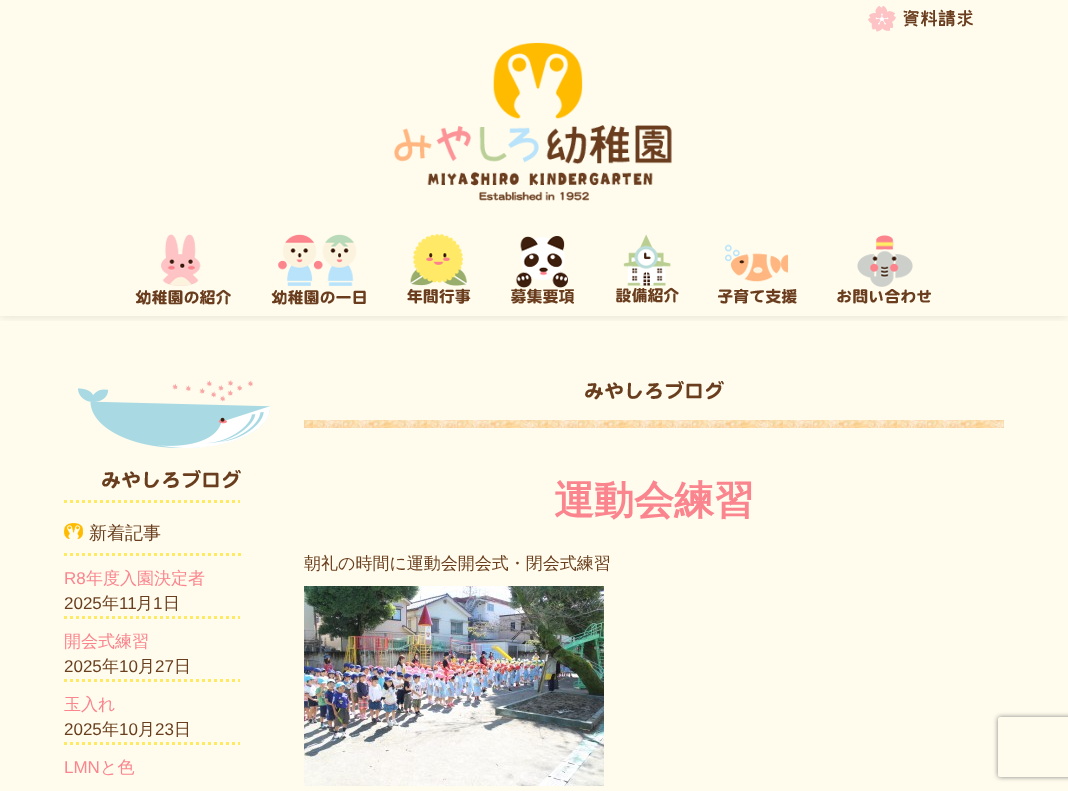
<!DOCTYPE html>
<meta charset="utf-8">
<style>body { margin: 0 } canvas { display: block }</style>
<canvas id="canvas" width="1068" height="791"></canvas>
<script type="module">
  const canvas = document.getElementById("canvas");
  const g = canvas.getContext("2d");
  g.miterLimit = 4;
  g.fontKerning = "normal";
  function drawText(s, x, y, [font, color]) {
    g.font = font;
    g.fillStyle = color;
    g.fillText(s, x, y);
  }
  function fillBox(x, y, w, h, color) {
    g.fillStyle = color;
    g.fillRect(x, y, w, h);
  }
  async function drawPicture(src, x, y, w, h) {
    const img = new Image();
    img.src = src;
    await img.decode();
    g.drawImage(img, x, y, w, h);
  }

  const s1 = ["500 18px WenQuanYi Zen Hei", "#693E1E"];
  const s2 = ["17px Liberation Sans", "#FA858E"];
  const s3 = ["500 17px WenQuanYi Zen Hei", "#FA858E"];
  const s4 = ["17px Liberation Sans", "#693E1E"];
  const s5 = ["500 17px WenQuanYi Zen Hei", "#693E1E"];
  const s6 = ["bold 40px WenQuanYi Zen Hei", "#FA858E"];

  fillBox(0, 0, 1068, 791, "#FFFCED");
  g.save();
  g.beginPath();
  g.rect(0, 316, 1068, 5);
  g.clip();
  g.fillStyle = "rgba(0, 0, 0, 0.1)";
  g.filter = "blur(5px)";
  g.beginPath();
  g.rect(0, 1, 1068, 316);
  g.fill();
  g.filter = "none";
  g.restore();
  await drawPicture("pic1.png", 868, 6, 105, 26);
  await drawPicture("pic2.png", 394, 42, 278, 159);
  await drawPicture("pic3.png", 135, 234, 96, 71);
  await drawPicture("pic4.png", 271, 234, 95, 71);
  await drawPicture("pic5.png", 407, 234, 64, 70);
  await drawPicture("pic6.png", 511, 236, 63, 68);
  await drawPicture("pic7.png", 616, 234, 63, 69);
  await drawPicture("pic8.png", 718, 244, 79, 60);
  await drawPicture("pic9.png", 837, 235, 94, 69);
  await drawPicture("pic10.png", 78, 380, 192, 109);
  g.beginPath();
  g.moveTo(64, 501.5);
  g.lineTo(240, 501.5);
  g.strokeStyle = "#FEEA63";
  g.lineWidth = 3;
  g.setLineDash([3, 3]);
  g.stroke();
  await drawPicture("pic11.png", 64, 523, 19, 16);
  g.beginPath();
  g.moveTo(64, 554.5);
  g.lineTo(243, 554.5);
  g.stroke();
  drawText("新着記事", 89, 539, s1);
  g.beginPath();
  g.moveTo(64, 617.5);
  g.lineTo(240, 617.5);
  g.stroke();
  drawText("R8", 64, 584, s2);
  drawText("年度入園決定者", 86, 584, s3);
  drawText("2025", 64, 609, s4);
  drawText("年", 102, 609, s5);
  drawText("11", 119, 609, s4);
  drawText("月", 136, 609, s5);
  drawText("1", 153, 609, s4);
  drawText("日", 163, 609, s5);
  g.beginPath();
  g.moveTo(64, 680.5);
  g.lineTo(240, 680.5);
  g.stroke();
  drawText("開会式練習", 64, 647, s3);
  drawText("2025", 64, 672, s4);
  drawText("年", 102, 672, s5);
  drawText("10", 119, 672, s4);
  drawText("月", 138, 672, s5);
  drawText("27", 155, 672, s4);
  drawText("日", 174, 672, s5);
  g.beginPath();
  g.moveTo(64, 743.5);
  g.lineTo(240, 743.5);
  g.stroke();
  drawText("玉入れ", 64, 710, s3);
  drawText("2025", 64, 735, s4);
  drawText("年", 102, 735, s5);
  drawText("10", 119, 735, s4);
  drawText("月", 138, 735, s5);
  drawText("23", 155, 735, s4);
  drawText("日", 174, 735, s5);
  drawText("LMN", 64, 773, s2);
  drawText("と色", 100, 773, s3);
  await drawPicture("pic12.png", 585, 381, 139, 19);
  await drawPicture("pic13.png", 304, 420, 700, 8);
  drawText("運動会練習", 554, 514, s6);
  drawText("朝礼の時間に運動会開会式・閉会式練習", 304, 569, s5);
  await drawPicture("pic14.png", 304, 586, 300, 200);
  g.save();
  g.beginPath();
  g.moveTo(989, 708);
  g.lineTo(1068, 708);
  g.lineTo(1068, 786);
  g.lineTo(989, 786);
  g.closePath();
  g.moveTo(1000, 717);
  g.lineTo(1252, 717);
  g.bezierCurveTo(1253, 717, 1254, 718, 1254, 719);
  g.lineTo(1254, 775);
  g.bezierCurveTo(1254, 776, 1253, 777, 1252, 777);
  g.lineTo(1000, 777);
  g.bezierCurveTo(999, 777, 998, 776, 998, 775);
  g.lineTo(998, 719);
  g.bezierCurveTo(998, 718, 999, 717, 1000, 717);
  g.closePath();
  g.clip("evenodd");
  g.fillStyle = "#808080";
  g.filter = "blur(2.5px)";
  g.beginPath();
  g.roundRect(998, 717, 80, 60, 2);
  g.fill();
  g.filter = "none";
  g.restore();
</script>
